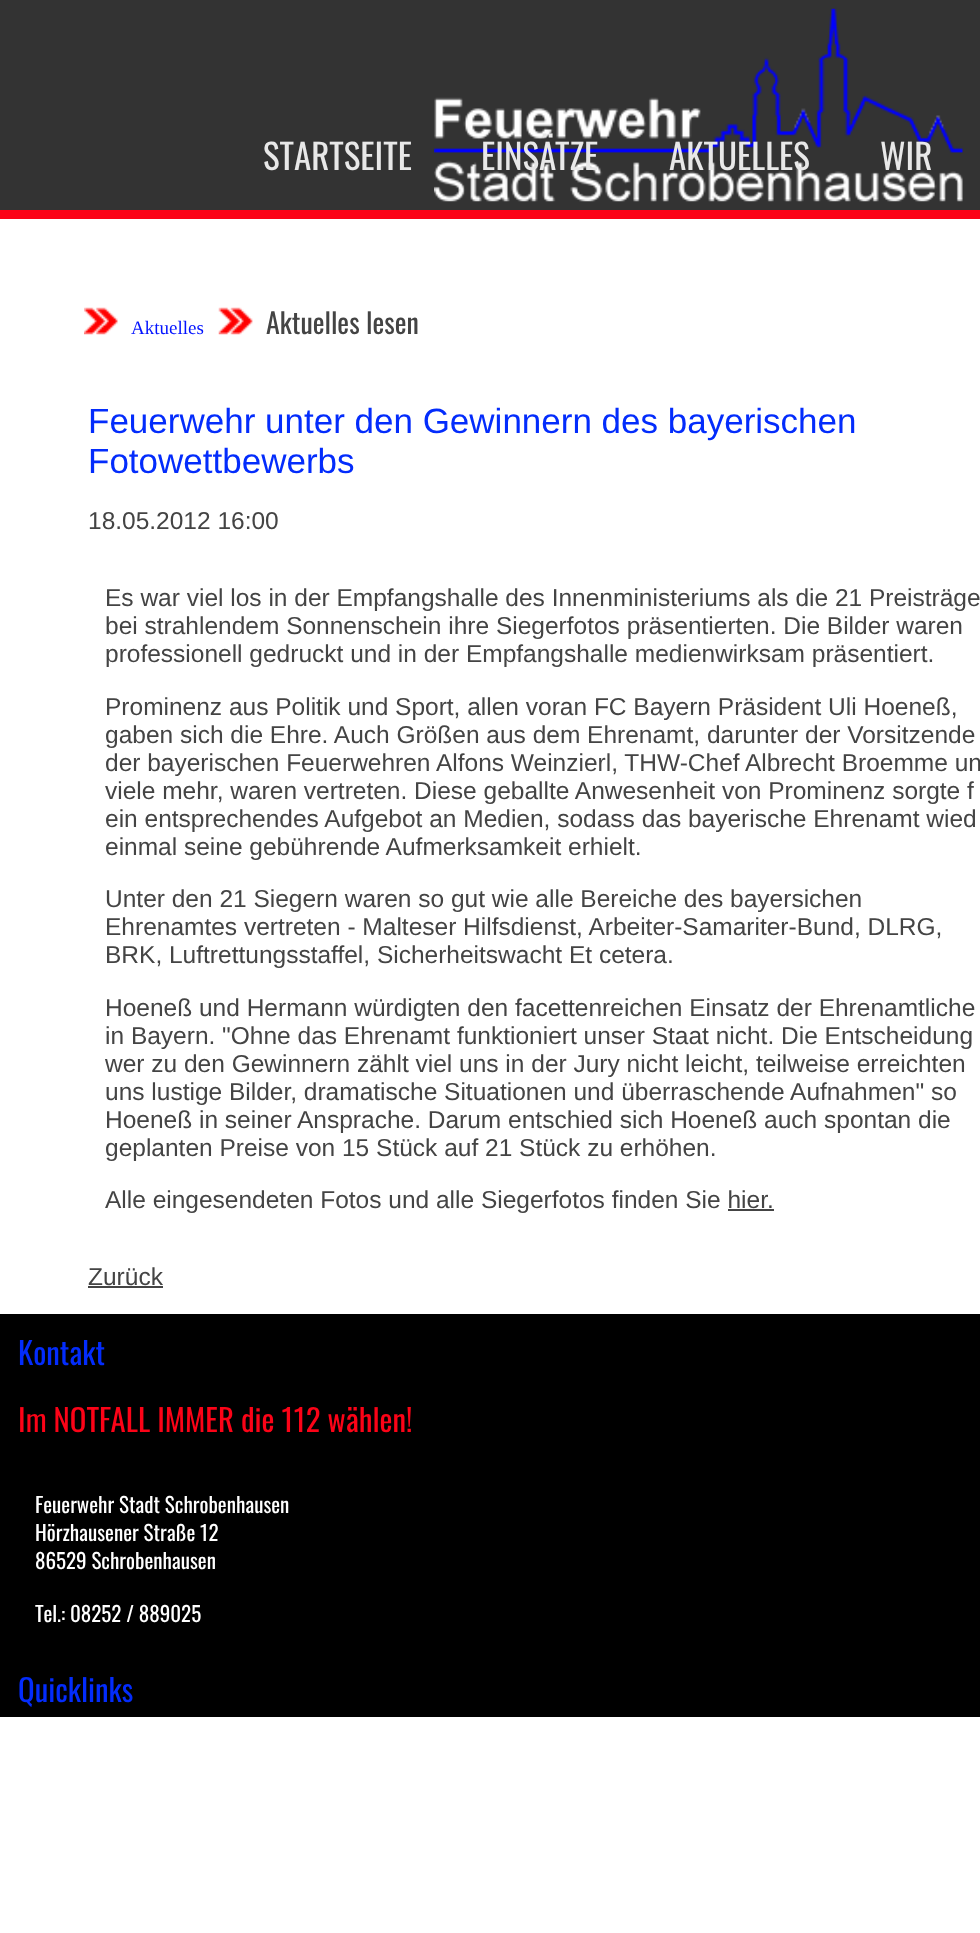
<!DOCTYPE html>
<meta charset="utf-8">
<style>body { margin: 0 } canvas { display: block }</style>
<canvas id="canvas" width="980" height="1933"></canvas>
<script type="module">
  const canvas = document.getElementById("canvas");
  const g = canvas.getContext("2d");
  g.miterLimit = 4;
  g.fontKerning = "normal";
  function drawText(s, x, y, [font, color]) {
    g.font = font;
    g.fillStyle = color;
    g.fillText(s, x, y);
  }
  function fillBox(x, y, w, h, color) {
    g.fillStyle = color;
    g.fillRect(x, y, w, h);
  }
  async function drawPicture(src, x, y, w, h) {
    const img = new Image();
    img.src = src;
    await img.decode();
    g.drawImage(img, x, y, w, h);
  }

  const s1 = ["35px Oswald", "#E8E8E8"];
  const s2 = ["19px Liberation Serif", "#0313FF"];
  const s3 = ["28px Oswald", "#444444"];
  const s4 = ["35px Liberation Sans", "#032CFC"];
  const s5 = ["24.5px Liberation Sans", "#444444"];
  const s6 = ["30.75px Oswald", "#032CFC"];
  const s7 = ["30.75px Oswald", "#FC0317"];
  const s8 = ["21px Oswald", "#FFFFFF"];

  fillBox(0, 0, 980, 1933, "#FFFFFF");
  fillBox(0, 0, 980, 210, "#333333");
  fillBox(0, 210, 980, 9, "#FC0317");
  await drawPicture("pic1.png", 434, 8, 529, 194);
  drawText("STARTSEITE", 263, 170, s1);
  drawText("EINSÄTZE", 481, 170, s1);
  drawText("AKTUELLES", 669, 170, s1);
  drawText("WIR", 880, 170, s1);
  await drawPicture("pic2.png", 84, 307, 34, 28);
  drawText("Aktuelles", 131, 334, s2);
  await drawPicture("pic3.png", 218, 307, 35, 28);
  drawText("Aktuelles lesen", 266, 334, s3);
  drawText("Feuerwehr unter den Gewinnern des bayerischen", 88, 433, s4);
  drawText("Fotowettbewerbs", 88, 473, s4);
  drawText("18.05.2012 16:00", 88, 529, s5);
  drawText("Es war viel los in der Empfangshalle des Innenministeriums als die 21 Preisträge", 105, 606, s5);
  drawText("bei strahlendem Sonnenschein ihre Siegerfotos präsentierten. Die Bilder waren", 105, 634, s5);
  drawText("professionell gedruckt und in der Empfangshalle medienwirksam präsentiert.", 105, 662, s5);
  drawText("Prominenz aus Politik und Sport, allen voran FC Bayern Präsident Uli Hoeneß,", 105, 715, s5);
  drawText("gaben sich die Ehre. Auch Größen aus dem Ehrenamt, darunter der Vorsitzende", 105, 743, s5);
  drawText("der bayerischen Feuerwehren Alfons Weinzierl, THW-Chef Albrecht Broemme un", 105, 771, s5);
  drawText("viele mehr, waren vertreten. Diese geballte Anwesenheit von Prominenz sorgte f", 105, 799, s5);
  drawText("ein entsprechendes Aufgebot an Medien, sodass das bayerische Ehrenamt wied", 105, 827, s5);
  drawText("einmal seine gebührende Aufmerksamkeit erhielt.", 105, 855, s5);
  drawText("Unter den 21 Siegern waren so gut wie alle Bereiche des bayersichen", 105, 907, s5);
  drawText("Ehrenamtes vertreten - Malteser Hilfsdienst, Arbeiter-Samariter-Bund, DLRG,", 105, 935, s5);
  drawText("BRK, Luftrettungsstaffel, Sicherheitswacht Et cetera.", 105, 963, s5);
  drawText("Hoeneß und Hermann würdigten den facettenreichen Einsatz der Ehrenamtliche", 105, 1016, s5);
  drawText("in Bayern. \"Ohne das Ehrenamt funktioniert unser Staat nicht. Die Entscheidung", 105, 1044, s5);
  drawText("wer zu den Gewinnern zählt viel uns in der Jury nicht leicht, teilweise erreichten", 105, 1072, s5);
  drawText("uns lustige Bilder, dramatische Situationen und überraschende Aufnahmen\" so", 105, 1100, s5);
  drawText("Hoeneß in seiner Ansprache. Darum entschied sich Hoeneß auch spontan die", 105, 1128, s5);
  drawText("geplanten Preise von 15 Stück auf 21 Stück zu erhöhen.", 105, 1156, s5);
  drawText("Alle eingesendeten Fotos und alle Siegerfotos finden Sie hier.", 105, 1208, s5);
  fillBox(728, 1209, 46, 2, "#444444");
  drawText("Zurück", 88, 1285, s5);
  fillBox(88, 1286, 75, 2, "#444444");
  fillBox(0, 1314, 980, 403, "#000000");
  drawText("Kontakt", 18, 1365, s6);
  drawText("Im NOTFALL IMMER die 112 wählen!", 18, 1432, s7);
  drawText("Feuerwehr Stadt Schrobenhausen", 35, 1513, s8);
  drawText("Hörzhausener Straße 12", 35, 1541, s8);
  drawText("86529 Schrobenhausen", 35, 1569, s8);
  drawText("Tel.: 08252 / 889025", 35, 1622, s8);
  drawText("Quicklinks", 18, 1702, s6);
</script>
